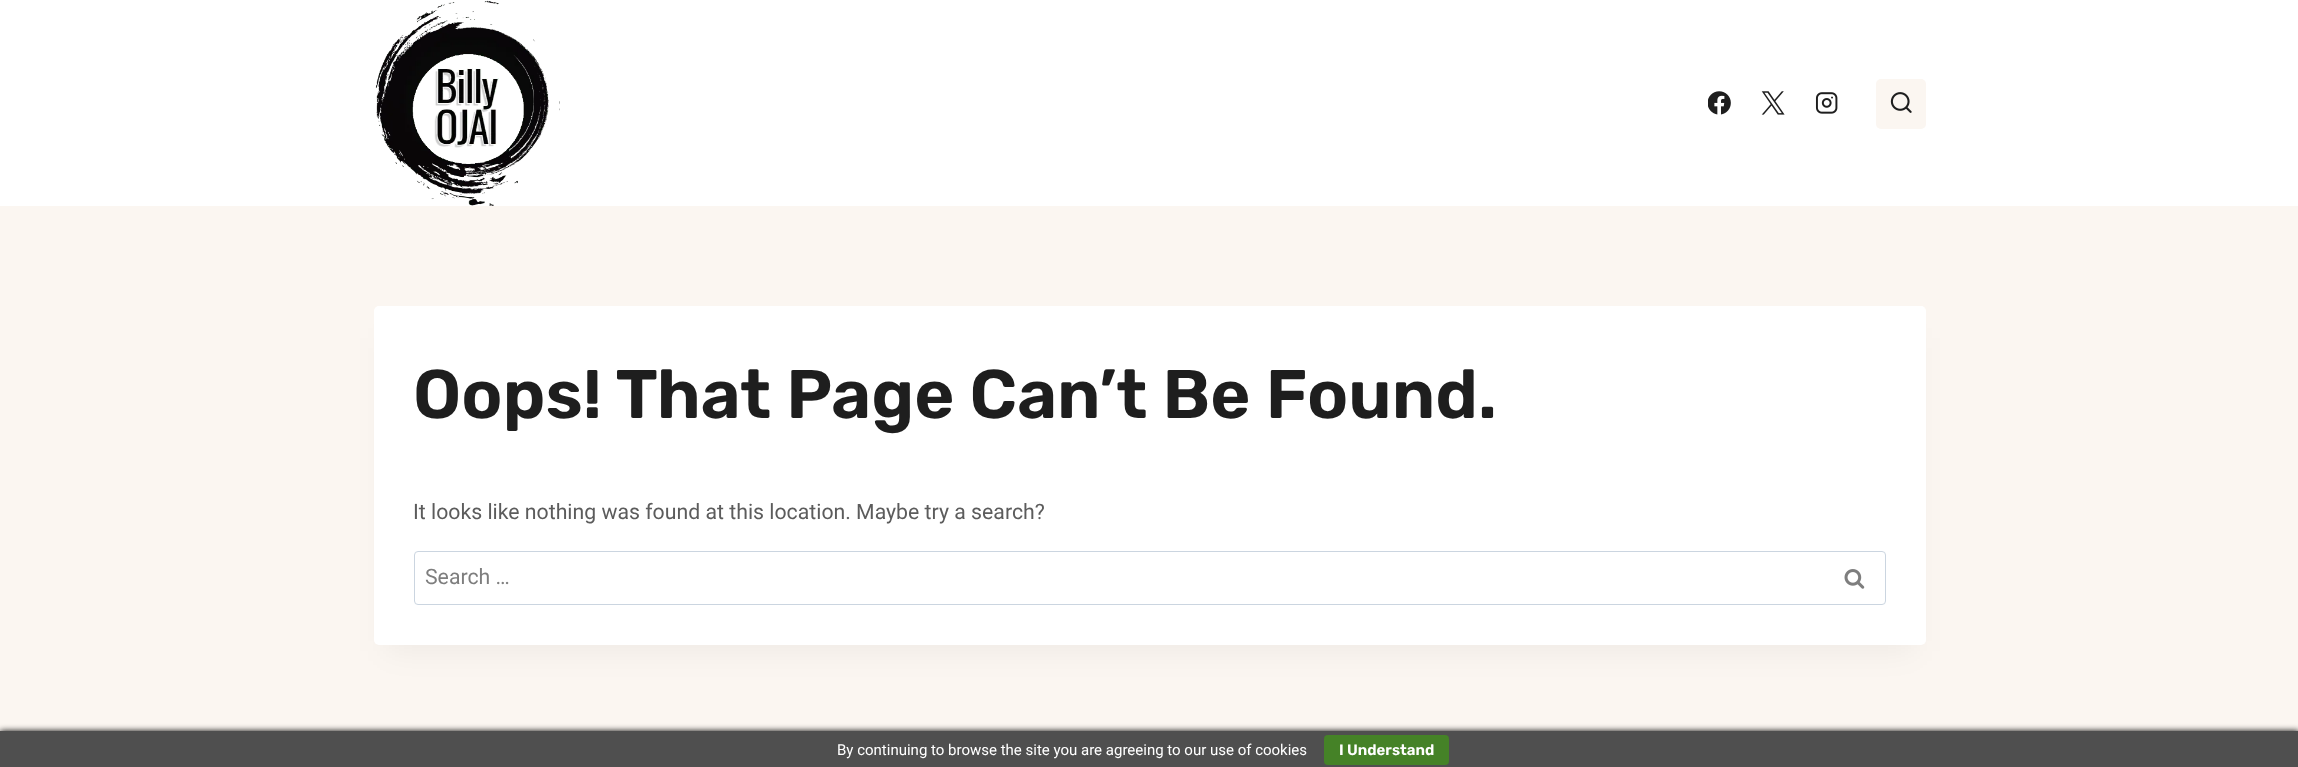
<!DOCTYPE html>
<meta charset="utf-8">
<style>body { margin: 0 } canvas { display: block }</style>
<canvas id="canvas" width="2298" height="767"></canvas>
<script type="module">
  const canvas = document.getElementById("canvas");
  const g = canvas.getContext("2d");
  g.miterLimit = 4;
  g.fontKerning = "normal";
  function drawText(s, x, y, [font, color]) {
    g.font = font;
    g.fillStyle = color;
    g.fillText(s, x, y);
  }
  function fillBox(x, y, w, h, color) {
    g.fillStyle = color;
    g.fillRect(x, y, w, h);
  }
  function fillRounded(x, y, w, h, r, color) {
    g.fillStyle = color;
    g.beginPath();
    g.roundRect(x, y, w, h, r);
    g.fill();
  }
  async function drawPicture(src, x, y, w, h) {
    const img = new Image();
    img.src = src;
    await img.decode();
    g.drawImage(img, x, y, w, h);
  }

  const s1 = ["600 68.75px Rubik", "#1E1E1E"];
  const s2 = ["21.25px Roboto", "#5C5C5C"];
  const s3 = ["21.25px Roboto", "#7E7E7E"];
  const s4 = ["15px Roboto", "#FFFFFF"];
  const s5 = ["600 15px Rubik", "#FFFFFF"];

  fillBox(0, 0, 2298, 767, "#FBF6F1");
  fillBox(0, 0, 2298, 206, "#FFFFFF");
  await drawPicture("pic1.png", 375, 0, 185, 206);
  await drawPicture("pic2.png", 1708, 91, 23, 24);
  await drawPicture("pic3.png", 1761, 91, 24, 24);
  await drawPicture("pic4.png", 1815, 92, 23, 22);
  fillRounded(1876, 79, 50, 50, 5, "#FBF6F1");
  await drawPicture("pic5.png", 1890, 92, 22, 21);
  g.fillStyle = "rgba(0, 0, 0, 0.05)";
  g.filter = "blur(15.5px)";
  g.beginPath();
  g.rect(386, 338, 1528, 313);
  g.fill();
  g.filter = "none";
  fillRounded(374, 306, 1552, 339, 5, "#FFFFFF");
  drawText("Oops! That Page Can’t Be Found.", 413, 418, s1);
  drawText("It looks like nothing was found at this location. Maybe try a search?", 413, 519, s2);
  g.beginPath();
  g.roundRect(414.5, 551.5, 1471, 53, 3.5);
  g.strokeStyle = "#CBD5E0";
  g.stroke();
  drawText("Search …", 425, 584, s3);
  await drawPicture("pic6.png", 1844, 569, 21, 20);
  g.fillStyle = "#000000";
  g.filter = "blur(3px)";
  g.beginPath();
  g.rect(0, 731, 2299, 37);
  g.fill();
  g.filter = "none";
  fillBox(0, 731, 2298, 36, "#4F4F4F");
  drawText("By continuing to browse the site you are agreeing to our use of cookies", 837, 755, s4);
  fillRounded(1324, 735, 125, 30, 4, "#458227");
  drawText("I Understand", 1339, 755, s5);
</script>
